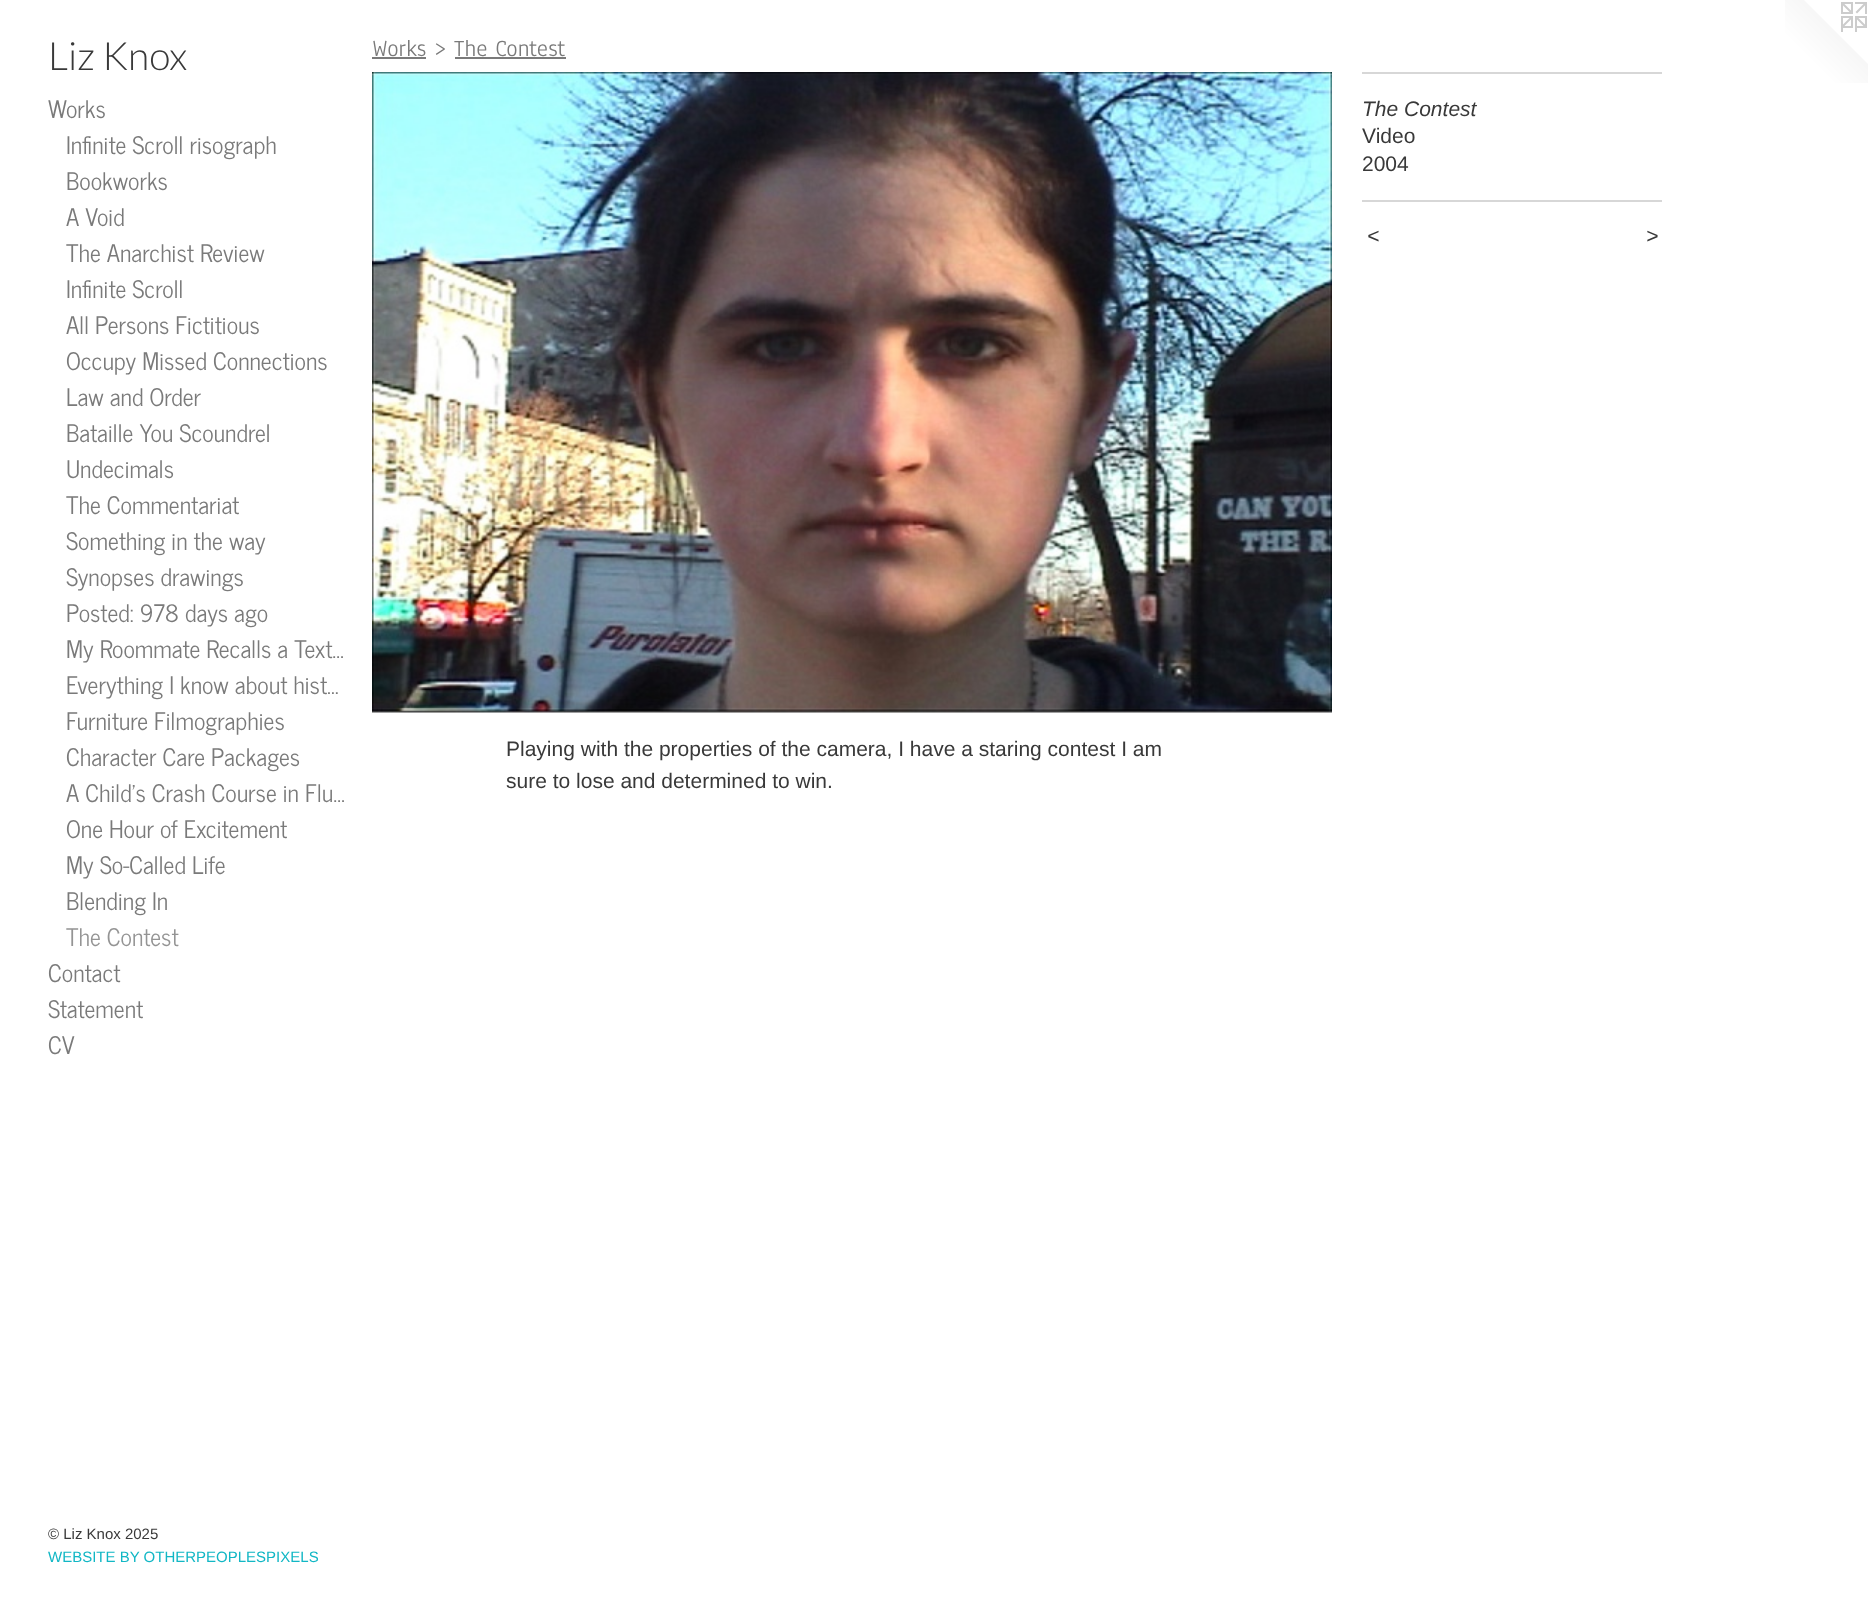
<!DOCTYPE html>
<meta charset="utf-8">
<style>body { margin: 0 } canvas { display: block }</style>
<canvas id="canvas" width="1868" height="1602"></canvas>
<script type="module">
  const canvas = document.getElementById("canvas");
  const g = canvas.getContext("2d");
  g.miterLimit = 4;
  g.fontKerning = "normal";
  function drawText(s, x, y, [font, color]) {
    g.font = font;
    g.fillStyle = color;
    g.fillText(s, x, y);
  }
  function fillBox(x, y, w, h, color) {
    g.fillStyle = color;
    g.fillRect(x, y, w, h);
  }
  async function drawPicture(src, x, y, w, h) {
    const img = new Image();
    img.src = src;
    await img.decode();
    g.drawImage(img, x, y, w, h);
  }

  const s1 = ["300 39px Lato", "#393939"];
  const s2 = ["24px News Cycle", "#7A7A7A"];
  const s3 = ["24px News Cycle", "#949494"];
  const s4 = ["15px Liberation Sans", "#393939"];
  const s5 = ["15px Liberation Sans", "#11B7C5"];
  const s6 = ["24px Anaheim", "#7A7A7A"];
  const s7 = ["italic 21px Liberation Sans", "#393939"];
  const s8 = ["21px Liberation Sans", "#393939"];

  fillBox(0, 0, 1868, 1602, "#FFFFFF");
  drawText("Liz Knox", 48, 70, s1);
  drawText("Works", 48, 118, s2);
  drawText("Infinite Scroll risograph", 66, 154, s2);
  drawText("Bookworks", 66, 190, s2);
  drawText("A Void", 66, 226, s2);
  drawText("The Anarchist Review", 66, 262, s2);
  drawText("Infinite Scroll", 66, 298, s2);
  drawText("All Persons Fictitious", 66, 334, s2);
  drawText("Occupy Missed Connections", 66, 370, s2);
  drawText("Law and Order", 66, 406, s2);
  drawText("Bataille You Scoundrel", 66, 442, s2);
  drawText("Undecimals", 66, 478, s2);
  drawText("The Commentariat", 66, 514, s2);
  drawText("Something in the way", 66, 550, s2);
  drawText("Synopses drawings", 66, 586, s2);
  drawText("Posted: 978 days ago", 66, 622, s2);
  drawText("My Roommate Recalls a Text…", 66, 658, s2);
  drawText("Everything I know about hist…", 66, 694, s2);
  drawText("Furniture Filmographies", 66, 730, s2);
  drawText("Character Care Packages", 66, 766, s2);
  drawText("A Child's Crash Course in Flu…", 66, 802, s2);
  drawText("One Hour of Excitement", 66, 838, s2);
  drawText("My So-Called Life", 66, 874, s2);
  drawText("Blending In", 66, 910, s2);
  drawText("The Contest", 66, 946, s3);
  drawText("Contact", 48, 982, s2);
  drawText("Statement", 48, 1018, s2);
  drawText("CV", 48, 1054, s2);
  drawText("© Liz Knox 2025", 48, 1539, s4);
  drawText("WEBSITE BY OTHERPEOPLESPIXELS", 48, 1562, s5);
  drawText("Works > The Contest", 372, 56, s6);
  fillBox(372, 57, 54, 2, "#7A7A7A");
  fillBox(455, 57, 111, 2, "#7A7A7A");
  await drawPicture("pic1.png", 372, 72, 960, 641);
  fillBox(1362, 72, 300, 2, "#D7D7D7");
  drawText("The Contest", 1362, 116, s7);
  drawText("Video", 1362, 143, s8);
  drawText("2004", 1362, 171, s8);
  fillBox(1362, 200, 300, 2, "#D7D7D7");
  g.letterSpacing = "2px";
  drawText("<", 1367, 243, s7);
  drawText(">", 1646, 243, s7);
  g.letterSpacing = "0px";
  drawText("Playing with the properties of the camera, I have a staring contest I am", 506, 756, s8);
  drawText("sure to lose and determined to win.", 506, 788, s8);
  await drawPicture("pic2.png", 1785, 0, 83, 83);
</script>
